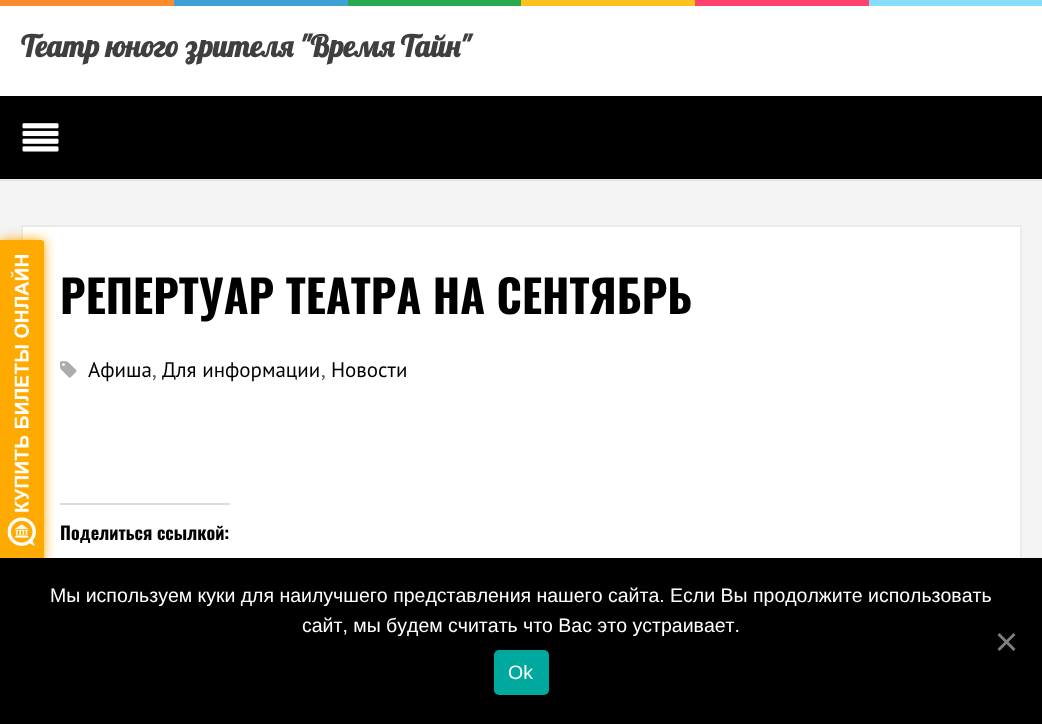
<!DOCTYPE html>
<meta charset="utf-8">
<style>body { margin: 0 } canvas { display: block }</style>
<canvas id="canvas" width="1042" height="724"></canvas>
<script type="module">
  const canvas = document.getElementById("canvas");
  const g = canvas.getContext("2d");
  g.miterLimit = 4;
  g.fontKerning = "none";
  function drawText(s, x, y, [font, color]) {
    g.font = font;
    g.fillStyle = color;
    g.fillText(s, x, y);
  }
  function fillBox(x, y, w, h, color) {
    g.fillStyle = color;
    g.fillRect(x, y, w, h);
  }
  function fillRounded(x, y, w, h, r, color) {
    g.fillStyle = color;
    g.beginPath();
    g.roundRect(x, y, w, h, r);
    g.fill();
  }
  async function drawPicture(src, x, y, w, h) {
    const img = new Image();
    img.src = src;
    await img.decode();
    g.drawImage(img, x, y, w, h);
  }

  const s1 = ["bold 30px Lobster", "#3F3F3F"];
  const s2 = ["bold 45px Oswald", "#000000"];
  const s3 = ["21px PT Sans", "#000000"];
  const s4 = ["21px PT Sans", "#555555"];
  const s5 = ["bold 18px Oswald", "#000000"];
  const s6 = ["19.5px Liberation Sans", "#FFFFFF"];

  fillBox(0, 0, 1042, 724, "#F4F4F4");
  fillBox(0, 180, 1042, 1, "#E0E0E0");
  fillBox(0, 6, 1042, 90, "#FFFFFF");
  fillBox(0, 179, 1042, 1, "#EBEBEB");
  fillBox(0, 0, 174, 6, "#FC8C2C");
  fillBox(174, 0, 174, 6, "#3FA1D3");
  fillBox(348, 0, 173, 6, "#27AA4D");
  fillBox(521, 0, 174, 6, "#FFC21D");
  fillBox(695, 0, 174, 6, "#FF426E");
  fillBox(869, 0, 173, 6, "#86DEFF");
  drawText("Театр юного зрителя \"Время Тайн\"", 21, 57, s1);
  fillBox(0, 96, 1042, 83, "#000000");
  await drawPicture("pic1.png", 22, 123, 37, 29);
  fillBox(23, 227, 997, 331, "#FFFFFF");
  g.strokeStyle = "#EBEBEB";
  g.lineWidth = 2;
  g.strokeRect(22, 226, 999, 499);
  await drawPicture("pic3.png", 60, 361, 17, 17);
  fillBox(60, 503, 170, 2, "#DDDDDD");
  g.fillStyle = "#FFAA00";
  g.filter = "blur(6px)";
  g.beginPath();
  g.roundRect(0, 240, 44, 321, 3);
  g.fill();
  g.filter = "none";
  g.beginPath();
  g.roundRect(0, 240, 44, 321, [0, 3, 3, 0]);
  g.fill();
  await drawPicture("pic2.png", 7, 255, 29, 291);
  drawText("РЕПЕРТУАР ТЕАТРА НА СЕНТЯБРЬ", 60, 314, s2);
  drawText("Афиша", 88, 377, s3);
  drawText(",", 152, 377, s4);
  drawText("Для информации", 162, 377, s3);
  drawText(",", 321, 377, s4);
  drawText("Новости", 331, 377, s3);
  drawText("Поделиться ссылкой:", 60, 540, s5);
  fillBox(0, 558, 1042, 166, "#000000");
  drawText("Мы используем куки для наилучшего представления нашего сайта. Если Вы продолжите", 50, 602, s6);
  drawText("использовать", 868, 602, s6);
  drawText("сайт, мы будем считать", 302, 632, s6);
  drawText("что Вас это устраивает.", 523, 632, s6);
  g.fillStyle = "#808080";
  g.beginPath();
  g.moveTo(1013.5, 633);
  g.lineTo(1015.5, 635);
  g.lineTo(999.5, 651);
  g.lineTo(997.5, 649);
  g.closePath();
  g.fill();
  g.beginPath();
  g.moveTo(997.5, 635);
  g.lineTo(999.5, 633);
  g.lineTo(1015.5, 649);
  g.lineTo(1013.5, 651);
  g.closePath();
  g.fill();
  fillRounded(494, 650, 55, 45, 5, "#00A99D");
  drawText("Ok", 508, 679, s6);
</script>
